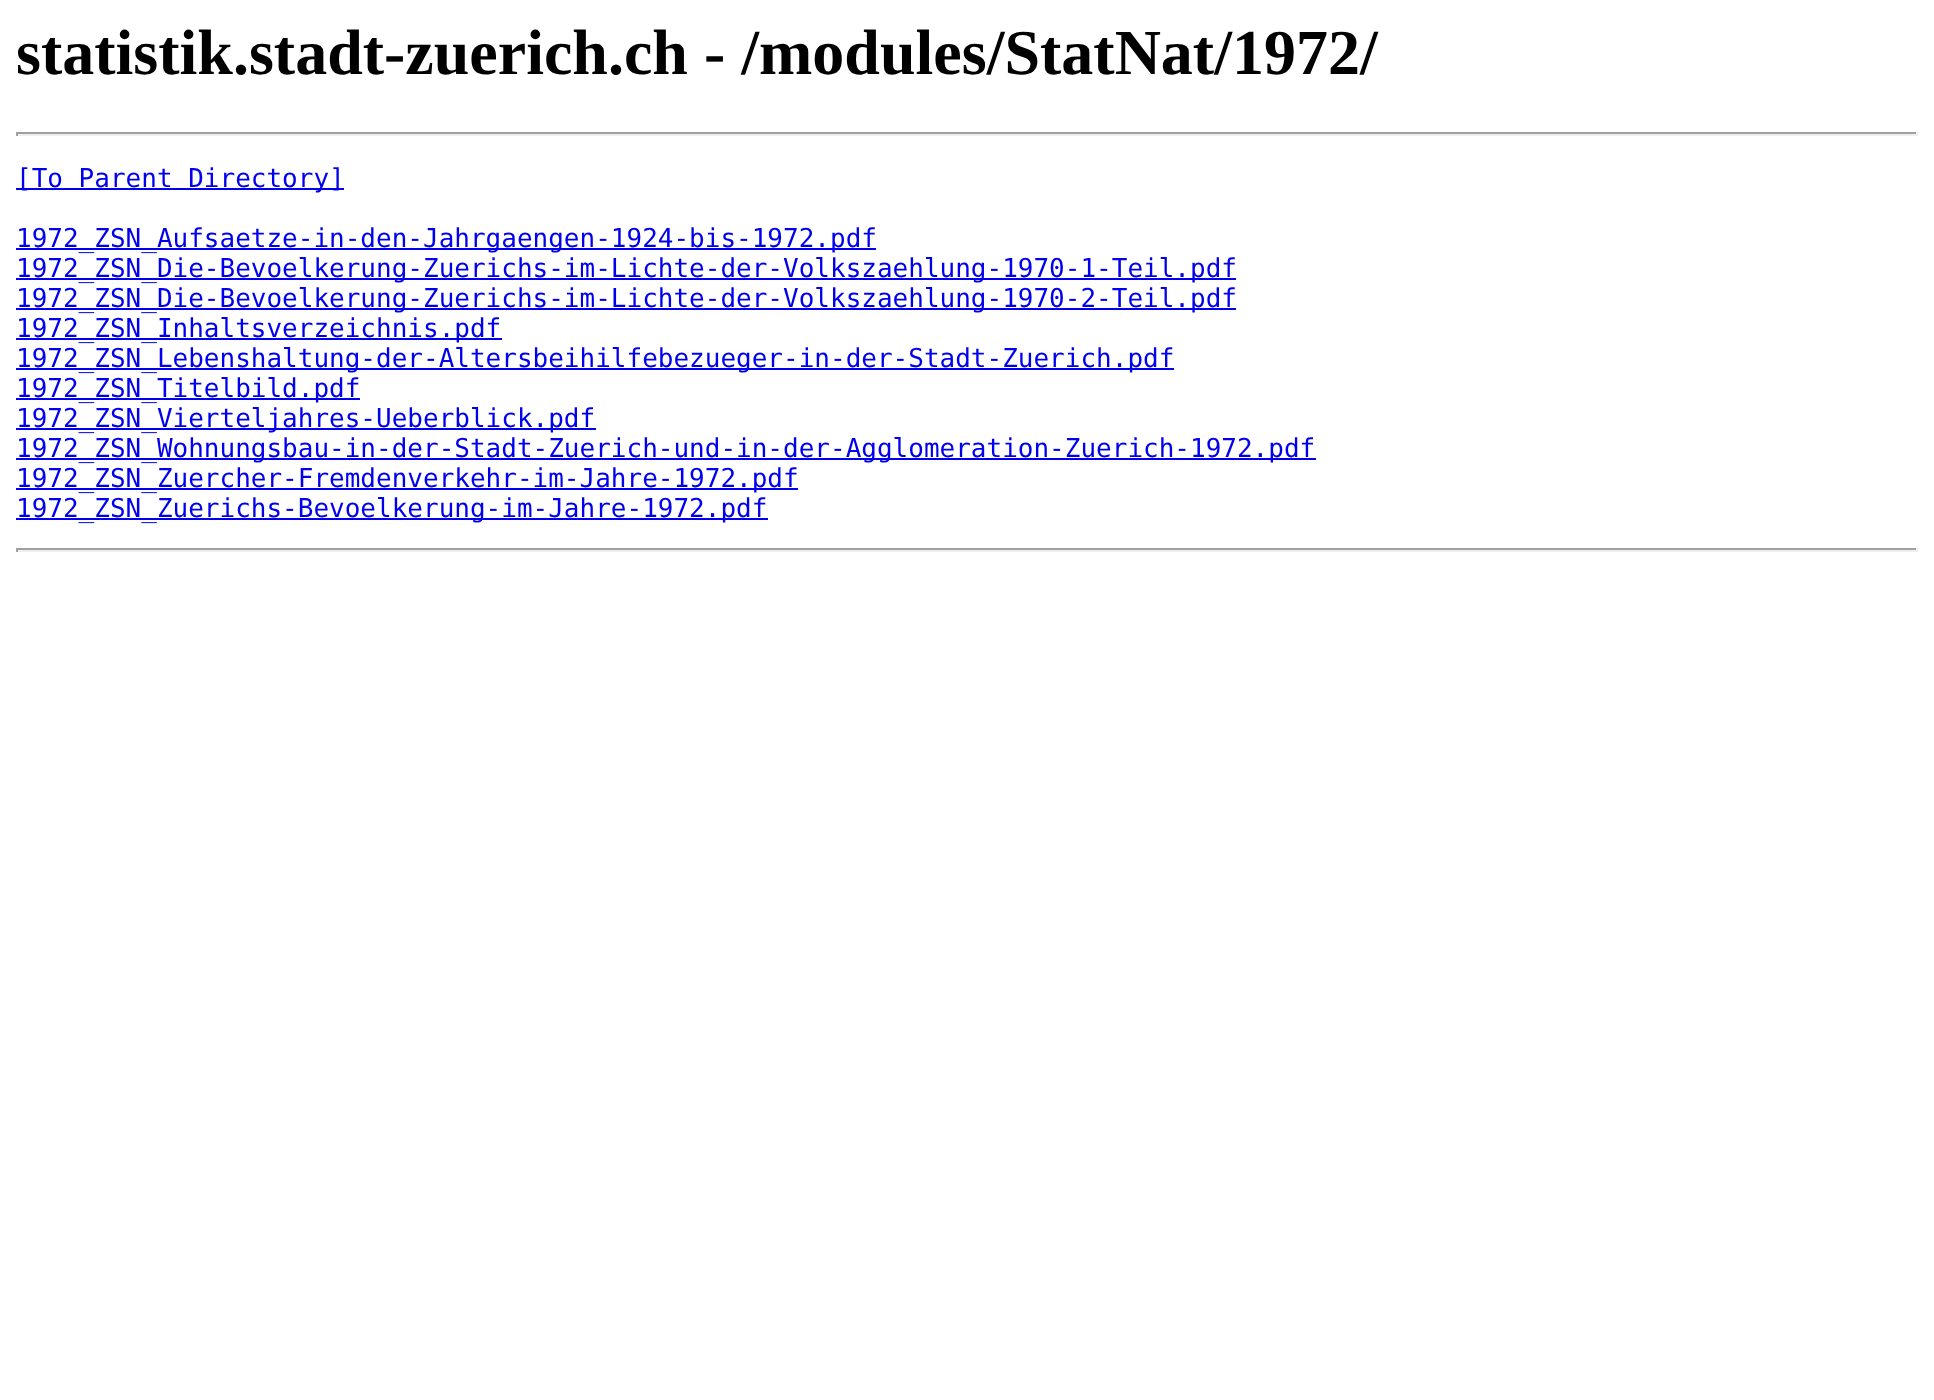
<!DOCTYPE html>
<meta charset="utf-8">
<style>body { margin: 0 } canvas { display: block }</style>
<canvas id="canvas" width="1934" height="1400"></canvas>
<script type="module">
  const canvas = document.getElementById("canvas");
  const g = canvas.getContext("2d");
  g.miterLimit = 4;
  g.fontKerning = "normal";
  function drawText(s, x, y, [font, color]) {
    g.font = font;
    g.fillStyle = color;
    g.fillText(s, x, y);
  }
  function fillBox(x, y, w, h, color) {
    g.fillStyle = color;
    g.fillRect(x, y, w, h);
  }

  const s1 = ["bold 64px Liberation Serif", "#000000"];
  const s2 = ["26px DejaVu Sans Mono", "#0000EE"];

  fillBox(0, 0, 1934, 1400, "#FFFFFF");
  drawText("statistik.stadt-zuerich.ch - /modules/StatNat/1972/", 16, 74, s1);
  fillBox(16, 132, 1902, 2, "#9F9F9F");
  fillBox(1916, 132, 2, 4, "#EEEEEE");
  fillBox(16, 134, 1902, 2, "#EEEEEE");
  fillBox(16, 132, 2, 4, "#9F9F9F");
  fillBox(16, 188, 328, 2, "#0000EE");
  drawText("[To Parent Directory]", 16, 187, s2);
  fillBox(16, 248, 860, 2, "#0000EE");
  drawText("1972_ZSN_Aufsaetze-in-den-Jahrgaengen-1924-bis-1972.pdf", 16, 247, s2);
  fillBox(16, 278, 1220, 2, "#0000EE");
  drawText("1972_ZSN_Die-Bevoelkerung-Zuerichs-im-Lichte-der-Volkszaehlung-1970-1-Teil.pdf", 16, 277, s2);
  fillBox(16, 308, 1220, 2, "#0000EE");
  drawText("1972_ZSN_Die-Bevoelkerung-Zuerichs-im-Lichte-der-Volkszaehlung-1970-2-Teil.pdf", 16, 307, s2);
  fillBox(16, 338, 486, 2, "#0000EE");
  drawText("1972_ZSN_Inhaltsverzeichnis.pdf", 16, 337, s2);
  fillBox(16, 368, 1158, 2, "#0000EE");
  drawText("1972_ZSN_Lebenshaltung-der-Altersbeihilfebezueger-in-der-Stadt-Zuerich.pdf", 16, 367, s2);
  fillBox(16, 398, 344, 2, "#0000EE");
  drawText("1972_ZSN_Titelbild.pdf", 16, 397, s2);
  fillBox(16, 428, 580, 2, "#0000EE");
  drawText("1972_ZSN_Vierteljahres-Ueberblick.pdf", 16, 427, s2);
  fillBox(16, 458, 1300, 2, "#0000EE");
  drawText("1972_ZSN_Wohnungsbau-in-der-Stadt-Zuerich-und-in-der-Agglomeration-Zuerich-1972.pdf", 16, 457, s2);
  fillBox(16, 488, 782, 2, "#0000EE");
  drawText("1972_ZSN_Zuercher-Fremdenverkehr-im-Jahre-1972.pdf", 16, 487, s2);
  fillBox(16, 518, 752, 2, "#0000EE");
  drawText("1972_ZSN_Zuerichs-Bevoelkerung-im-Jahre-1972.pdf", 16, 517, s2);
  fillBox(16, 548, 1902, 2, "#9F9F9F");
  fillBox(1916, 548, 2, 4, "#EEEEEE");
  fillBox(16, 550, 1902, 2, "#EEEEEE");
  fillBox(16, 548, 2, 4, "#9F9F9F");
</script>
